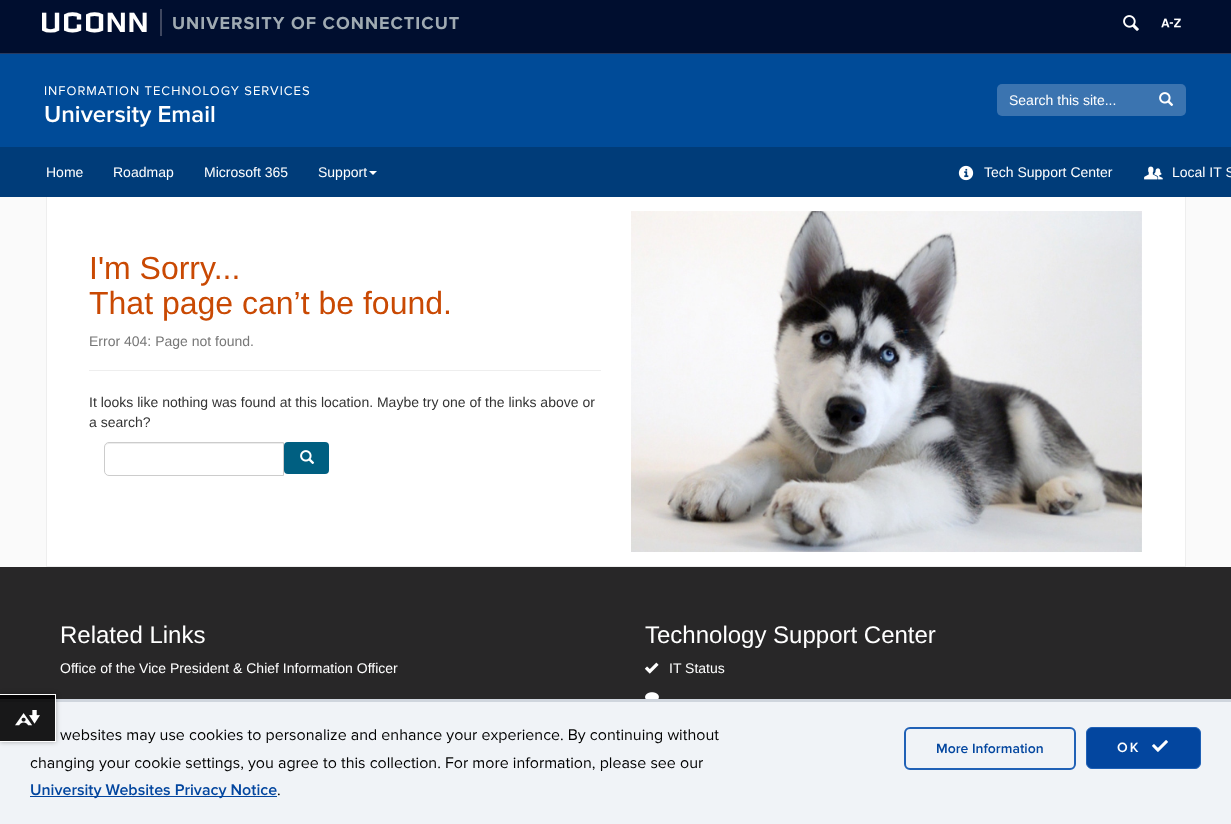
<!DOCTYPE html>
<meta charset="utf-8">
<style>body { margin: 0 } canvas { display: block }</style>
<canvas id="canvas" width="1231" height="824"></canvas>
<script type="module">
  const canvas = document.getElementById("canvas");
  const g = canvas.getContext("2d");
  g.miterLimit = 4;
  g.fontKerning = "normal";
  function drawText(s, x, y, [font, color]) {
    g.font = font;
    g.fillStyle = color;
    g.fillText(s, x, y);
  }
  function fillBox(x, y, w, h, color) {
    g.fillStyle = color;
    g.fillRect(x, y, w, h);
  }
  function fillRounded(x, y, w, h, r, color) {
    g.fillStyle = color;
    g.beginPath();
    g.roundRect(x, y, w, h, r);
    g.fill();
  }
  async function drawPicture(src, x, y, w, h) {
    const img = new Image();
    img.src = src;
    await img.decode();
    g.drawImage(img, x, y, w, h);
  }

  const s1 = ["32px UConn", "#FFFFFF"];
  const s2 = ["bold 18px Proxima Nova", "#9FAAB2"];
  const s3 = ["13px Proxima Nova", "#FFFFFF"];
  const s4 = ["600 24px Proxima Nova", "#FFFFFF"];
  const s5 = ["14px Liberation Sans", "#FFFFFF"];
  const s6 = ["32px Liberation Sans", "#C94903"];
  const s7 = ["14px Liberation Sans", "#777777"];
  const s8 = ["14px Liberation Sans", "#333333"];
  const s9 = ["24px Liberation Sans", "#FFFFFF"];
  const s10 = ["16px Proxima Nova", "#000000"];
  const s11 = ["600 16px Proxima Nova", "#03469F"];
  const s12 = ["600 14px Proxima Nova", "#03469F"];
  const s13 = ["600 14px Proxima Nova", "#FFFFFF"];

  fillBox(0, 0, 1231, 824, "#FAFAFA");
  fillBox(0, 0, 1231, 53, "#000E2F");
  fillBox(0, 53, 1231, 1, "#273A60");
  g.letterSpacing = "3px";
  drawText("UCONN", 42, 32, s1);
  g.letterSpacing = "1px";
  drawText("UNIVERSITY OF CONNECTICUT", 172, 29, s2);
  fillBox(160, 9, 2, 27, "#3F4760");
  await drawPicture("pic1.png", 1123, 15, 16, 16);
  await drawPicture("pic2.png", 1161, 18, 20, 10);
  fillBox(0, 54, 1231, 93, "#004B98");
  drawText("INFORMATION TECHNOLOGY SERVICES", 44, 95, s3);
  g.letterSpacing = "0px";
  drawText("University Email", 44, 122, s4);
  g.fillStyle = "#3B74B0";
  g.beginPath();
  g.roundRect(997, 84, 150, 32, [5, 0, 0, 5]);
  g.fill();
  drawText("Search this site...", 1009, 105, s5);
  g.fillStyle = "#3B74B0";
  g.beginPath();
  g.roundRect(1147, 84, 39, 32, [0, 5, 5, 0]);
  g.fill();
  await drawPicture("pic3.png", 1159, 92, 15, 14);
  fillBox(0, 147, 1231, 50, "#003C79");
  drawText("Home", 46, 177, s5);
  drawText("Roadmap", 113, 177, s5);
  drawText("Microsoft 365", 204, 177, s5);
  drawText("Support", 318, 177, s5);
  g.beginPath();
  g.moveTo(369, 171);
  g.lineTo(377, 171);
  g.lineTo(373, 175);
  g.closePath();
  g.fill();
  await drawPicture("pic4.png", 958, 165, 16, 16);
  drawText("Tech Support Center", 984, 177, s5);
  await drawPicture("pic5.png", 1144, 166, 19, 14);
  drawText("Local IT S", 1172, 177, s5);
  fillBox(47, 197, 1138, 369, "#FFFFFF");
  fillBox(1185, 197, 1, 370, "#EEEEEE");
  fillBox(46, 566, 1140, 1, "#EEEEEE");
  fillBox(46, 197, 1, 370, "#EEEEEE");
  fillBox(89, 370, 512, 1, "#EEEEEE");
  drawText("I'm Sorry...", 89, 279, s6);
  drawText("That page can’t be found.", 89, 314, s6);
  drawText("Error 404: Page not found.", 89, 346, s7);
  drawText("It looks like nothing was found at this location. Maybe try one of the links above or", 89, 407, s8);
  drawText("a search?", 89, 427, s8);
  g.fillStyle = "#ECECEC";
  g.beginPath();
  g.moveTo(109, 444);
  g.lineTo(283, 444);
  g.lineTo(283, 443);
  g.lineTo(108, 443);
  g.bezierCurveTo(106, 444, 105, 446, 105, 448);
  g.bezierCurveTo(105, 446, 107, 444, 109, 444);
  g.closePath();
  g.fill();
  g.beginPath();
  g.roundRect(104.5, 442.5, 179, 33, [4.5, 0, 0, 4.5]);
  g.strokeStyle = "#CCCCCC";
  g.stroke();
  fillRounded(284, 442, 45, 32, 4, "#005F81");
  await drawPicture("pic6.png", 300, 450, 15, 14);
  await drawPicture("pic7.png", 631, 211, 511, 341);
  fillBox(0, 567, 1231, 132, "#282728");
  drawText("Related Links", 60, 643, s9);
  drawText("Office of the Vice President & Chief Information Officer", 60, 673, s5);
  drawText("Technology Support Center", 645, 643, s9);
  await drawPicture("pic8.png", 644, 662, 15, 12);
  drawText("IT Status", 669, 673, s5);
  await drawPicture("pic9.png", 645, 692, 14, 7);
  fillBox(0, 702, 1231, 122, "#F0F3F7");
  fillBox(0, 699, 1231, 3, "#CFD5DD");
  g.save();
  g.beginPath();
  g.moveTo(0, 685);
  g.lineTo(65, 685);
  g.lineTo(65, 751);
  g.lineTo(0, 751);
  g.closePath();
  g.moveTo(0, 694);
  g.lineTo(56, 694);
  g.lineTo(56, 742);
  g.lineTo(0, 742);
  g.closePath();
  g.clip("evenodd");
  g.fillStyle = "rgba(0, 0, 0, 0.3)";
  g.filter = "blur(2.5px)";
  g.beginPath();
  g.rect(0, 694, 56, 48);
  g.fill();
  g.filter = "none";
  g.restore();
  fillBox(0, 695, 55, 46, "rgba(0, 0, 0, 0.9)");
  fillBox(0, 694, 56, 1, "#FFFFFF");
  fillBox(55, 694, 1, 48, "#FFFFFF");
  fillBox(0, 741, 56, 1, "#FFFFFF");
  await drawPicture("pic10.png", 15, 710, 25, 16);
  drawText("websites may use cookies to personalize and enhance your experience. By continuing without", 60, 740, s10);
  drawText("changing your cookie settings, you agree to this collection. For more information, please see our", 30, 768, s10);
  fillBox(30, 796, 247, 1, "#03469F");
  drawText("University Websites Privacy Notice", 30, 795, s11);
  drawText(".", 277, 795, s10);
  g.beginPath();
  g.roundRect(905, 728, 170, 41, 5);
  g.strokeStyle = "#2061B6";
  g.lineWidth = 2;
  g.stroke();
  drawText("More Information", 936, 753, s12);
  g.beginPath();
  g.roundRect(1086.5, 727.5, 114, 41, 5.5);
  g.fill();
  g.lineWidth = 1;
  g.stroke();
  g.letterSpacing = "2px";
  drawText("OK", 1117, 752, s13);
  await drawPicture("pic11.png", 1152, 740, 16, 12);
</script>
